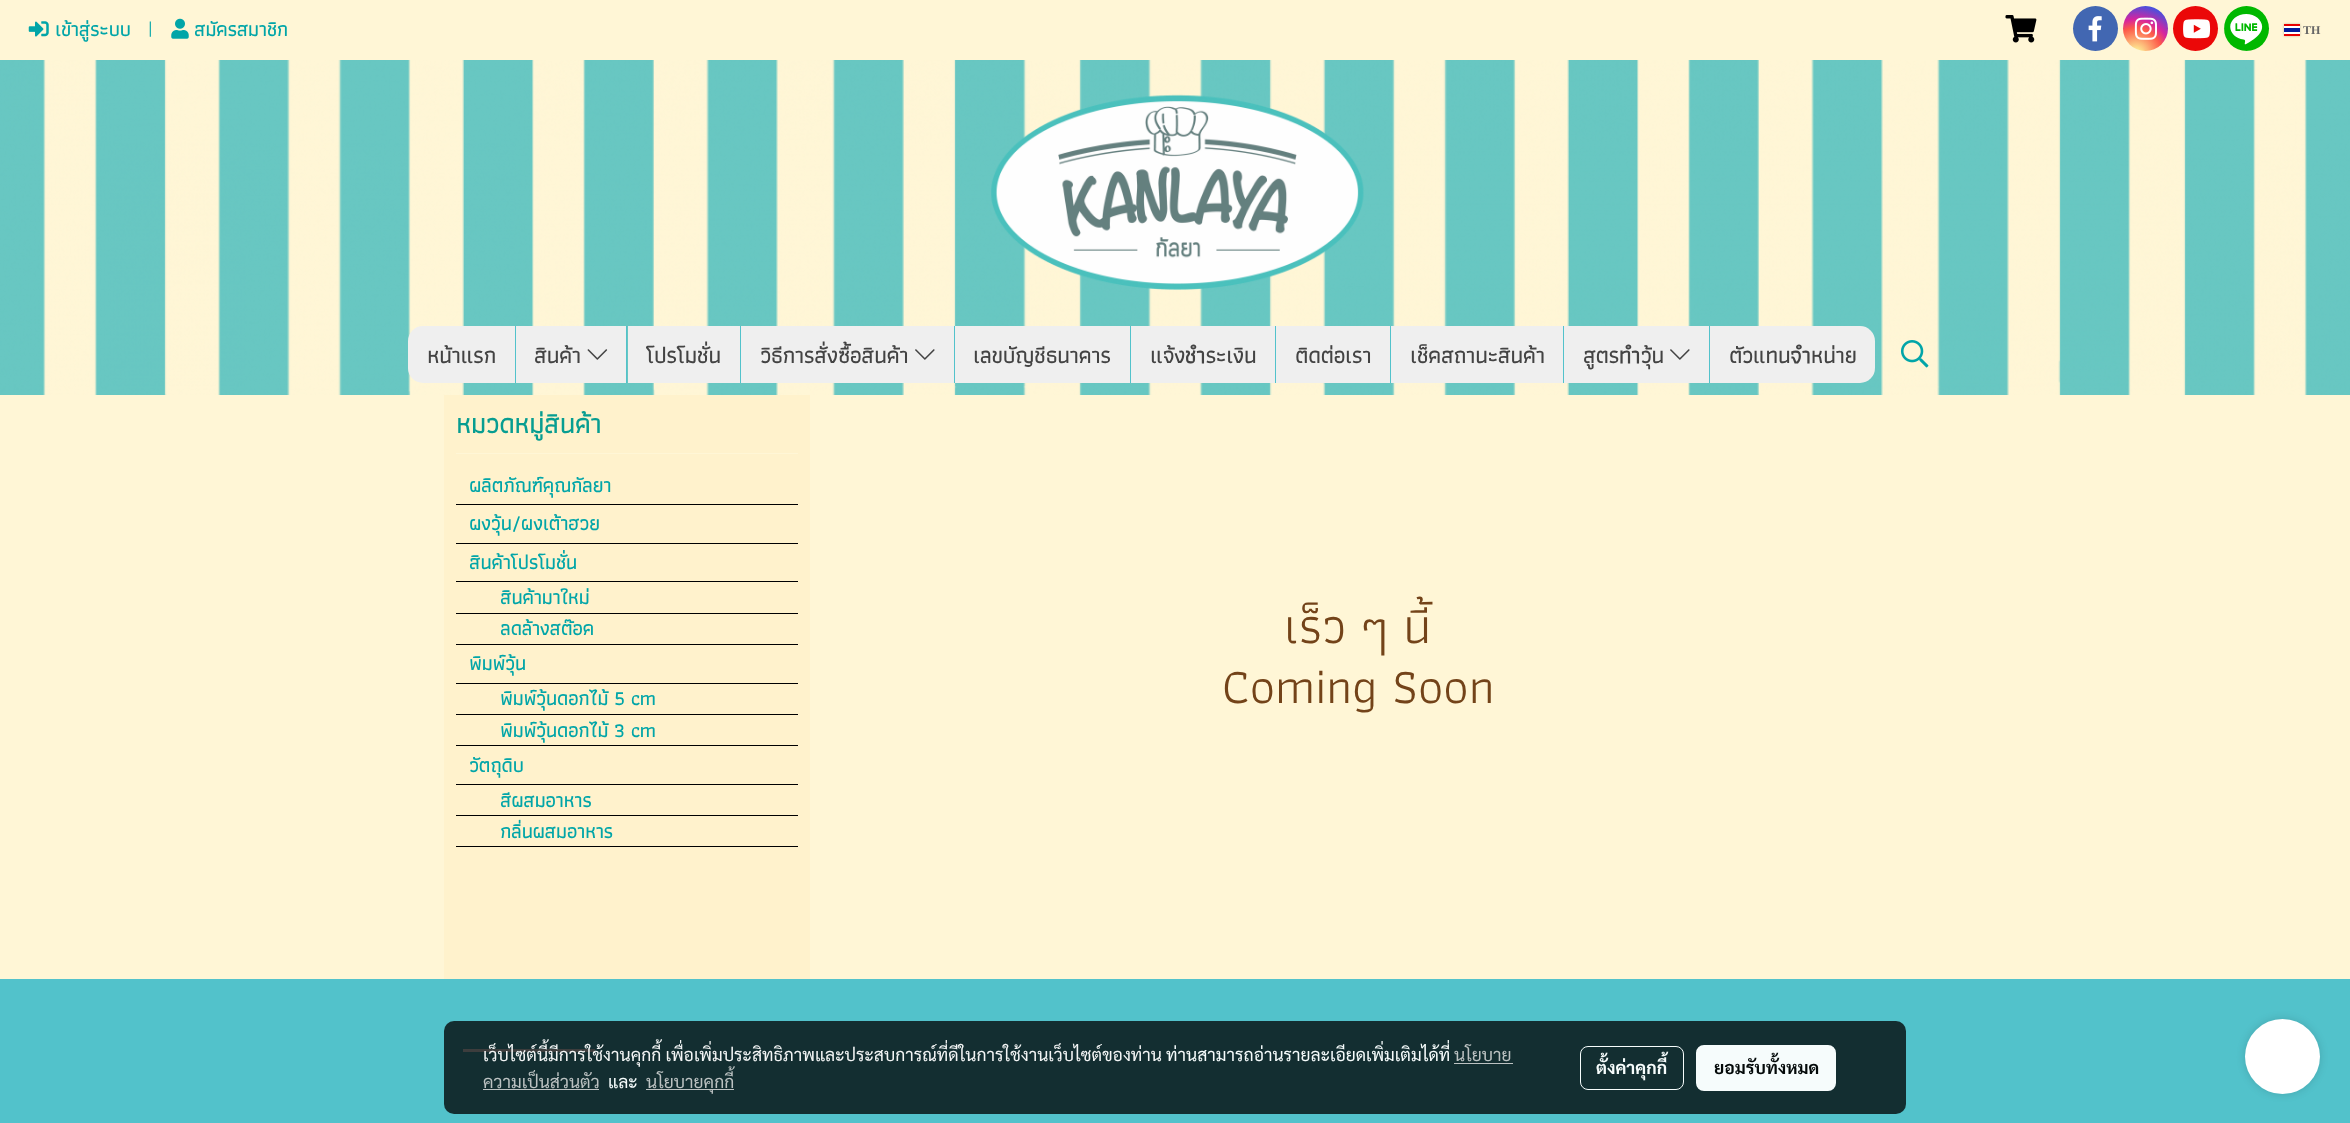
<!DOCTYPE html>
<meta charset="utf-8">
<style>body { margin: 0 } canvas { display: block }</style>
<canvas id="canvas" width="2350" height="1123"></canvas>
<script type="module">
  const canvas = document.getElementById("canvas");
  const g = canvas.getContext("2d");
  g.miterLimit = 4;
  g.fontKerning = "normal";
  function drawText(s, x, y, [font, color]) {
    g.font = font;
    g.fillStyle = color;
    g.fillText(s, x, y);
  }
  function fillBox(x, y, w, h, color) {
    g.fillStyle = color;
    g.fillRect(x, y, w, h);
  }
  function fillRounded(x, y, w, h, r, color) {
    g.fillStyle = color;
    g.beginPath();
    g.roundRect(x, y, w, h, r);
    g.fill();
  }
  async function drawPicture(src, x, y, w, h) {
    const img = new Image();
    img.src = src;
    await img.decode();
    g.drawImage(img, x, y, w, h);
  }
  let gradient;

  const s1 = ["bold 20px Athiti", "#01A5A8"];
  const s2 = ["20px Athiti", "#01A5A8"];
  const s3 = ["bold 12px Liberation Serif", "#666666"];
  const s4 = ["bold 22.5px Athiti", "#434343"];
  const s5 = ["bold 27.5px Athiti", "#079D91"];
  const s6 = ["50px Athiti", "#734319"];
  const s7 = ["17.5px Sarabun", "#F3F5F5"];
  const s8 = ["17.5px Sarabun", "#F6FCFC"];
  const s9 = ["17.5px Sarabun", "#BCC2C2"];
  const s10 = ["bold 17.5px Sarabun", "#F6FCFC"];
  const s11 = ["bold 17.5px Sarabun", "#040A0A"];

  fillBox(0, 0, 2350, 1123, "#FFF6D6");
  await drawPicture("pic1.png", 0, 60, 2350, 335);
  await drawPicture("pic2.png", 28, 21, 21, 16);
  drawText("เข้าสู่ระบบ", 55, 36, s1);
  drawText("|", 148, 34, s2);
  await drawPicture("pic3.png", 171, 18, 18, 21);
  drawText("สมัครสมาชิก", 194, 36, s1);
  await drawPicture("pic4.png", 2005, 15, 32, 28);
  g.fillStyle = "#4267B2";
  g.beginPath();
  g.arc(2095.5, 28.5, 22.5, 0, Math.PI * 2);
  g.fill();
  await drawPicture("pic5.png", 2088, 16, 14, 26);
  gradient = g.createRadialGradient(2136, 54, 0, 2136, 54, 58);
  gradient.addColorStop(0, "#FDF497");
  gradient.addColorStop(0.05, "#FDF497");
  gradient.addColorStop(0.45, "#FD5949");
  gradient.addColorStop(0.6, "#D6249F");
  gradient.addColorStop(0.9, "#285AEB");
  g.fillStyle = gradient;
  g.beginPath();
  g.arc(2145.5, 28.5, 22.5, 0, Math.PI * 2);
  g.fill();
  await drawPicture("pic6.png", 2134, 17, 23, 23);
  g.fillStyle = "#EB0808";
  g.beginPath();
  g.arc(2195.5, 28.5, 22.5, 0, Math.PI * 2);
  g.fill();
  await drawPicture("pic7.png", 2183, 19, 28, 20);
  g.fillStyle = "#00B800";
  g.beginPath();
  g.arc(2246.5, 28.5, 22.5, 0, Math.PI * 2);
  g.fill();
  await drawPicture("pic8.png", 2224, 14, 39, 37);
  g.fillStyle = "rgba(0, 0, 0, 0.25)";
  g.filter = "blur(1px)";
  g.beginPath();
  g.rect(2284, 24, 16, 12);
  g.fill();
  g.filter = "none";
  await drawPicture("pic9.png", 2284, 24, 16, 12);
  drawText("TH", 2303, 34, s3);
  await drawPicture("pic10.png", 991, 94, 373, 196);
  fillBox(515, 326, 1, 57, "#52C2CB");
  g.fillStyle = "#EFEFEF";
  g.beginPath();
  g.roundRect(408, 326, 107, 57, [15, 0, 0, 15]);
  g.fill();
  drawText("หน้าแรก", 427, 363, s4);
  fillBox(626, 326, 1, 57, "#52C2CB");
  fillBox(516, 326, 110, 57, "#EFEFEF");
  drawText("สินค้า", 534, 363, s4);
  await drawPicture("pic11.png", 587, 349, 21, 11);
  fillBox(740, 326, 1, 57, "#52C2CB");
  fillBox(628, 326, 112, 57, "#EFEFEF");
  drawText("โปรโมชั่น", 646, 363, s4);
  fillBox(954, 326, 1, 57, "#52C2CB");
  fillBox(741, 326, 213, 57, "#EFEFEF");
  drawText("วิธีการสั่งซื้อสินค้า", 760, 363, s4);
  await drawPicture("pic12.png", 915, 349, 20, 11);
  fillBox(1130, 326, 1, 57, "#52C2CB");
  fillBox(955, 326, 175, 57, "#EFEFEF");
  drawText("เลขบัญชีธนาคาร", 973, 363, s4);
  fillBox(1275, 326, 1, 57, "#52C2CB");
  fillBox(1131, 326, 144, 57, "#EFEFEF");
  drawText("แจ้งชำระเงิน", 1150, 363, s4);
  fillBox(1390, 326, 1, 57, "#52C2CB");
  fillBox(1276, 326, 114, 57, "#EFEFEF");
  drawText("ติดต่อเรา", 1295, 363, s4);
  fillBox(1563, 326, 1, 57, "#52C2CB");
  fillBox(1391, 326, 172, 57, "#EFEFEF");
  drawText("เช็คสถานะสินค้า", 1410, 363, s4);
  fillBox(1709, 326, 1, 57, "#52C2CB");
  fillBox(1564, 326, 145, 57, "#EFEFEF");
  drawText("สูตรทำวุ้น", 1583, 363, s4);
  await drawPicture("pic12.png", 1670, 349, 20, 11);
  g.fillStyle = "#EFEFEF";
  g.beginPath();
  g.roundRect(1710, 326, 165, 57, [0, 15, 15, 0]);
  g.fill();
  drawText("ตัวแทนจำหน่าย", 1729, 363, s4);
  await drawPicture("pic13.png", 1900, 340, 29, 28);
  fillBox(444, 395, 366, 584, "#FFF2CC");
  fillBox(456, 453, 342, 1, "#FFF6D6");
  drawText("หมวดหมู่สินค้า", 456, 433, s5);
  fillBox(456, 504, 342, 1, "#000000");
  drawText("ผลิตภัณฑ์คุณกัลยา", 469, 492, s1);
  fillBox(456, 543, 342, 1, "#000000");
  drawText("ผงวุ้น/ผงเต้าฮวย", 469, 530, s1);
  fillBox(456, 581, 342, 1, "#000000");
  drawText("สินค้าโปรโมชั่น", 469, 569, s1);
  fillBox(456, 613, 342, 1, "#000000");
  drawText("สินค้ามาใหม่", 500, 604, s1);
  fillBox(456, 644, 342, 1, "#000000");
  drawText("ลดล้างสต๊อค", 500, 635, s1);
  fillBox(456, 683, 342, 1, "#000000");
  drawText("พิมพ์วุ้น", 469, 670, s1);
  fillBox(456, 714, 342, 1, "#000000");
  drawText("พิมพ์วุ้นดอกไม้ 5 cm", 500, 705, s1);
  fillBox(456, 745, 342, 1, "#000000");
  drawText("พิมพ์วุ้นดอกไม้ 3 cm", 500, 737, s1);
  fillBox(456, 784, 342, 1, "#000000");
  drawText("วัตถุดิบ", 469, 772, s1);
  fillBox(456, 815, 342, 1, "#000000");
  drawText("สีผสมอาหาร", 500, 807, s1);
  fillBox(456, 846, 342, 1, "#000000");
  drawText("กลิ่นผสมอาหาร", 500, 838, s1);
  drawText("เร็ว ๆ นี้", 1284, 643, s6);
  drawText("Coming Soon", 1222, 703, s6);
  fillBox(0, 979, 2350, 144, "#52C2CB");
  fillBox(463, 1049, 132, 3, "#FFFFFF");
  fillRounded(444, 1021, 1462, 93, 10, "rgba(0, 0, 0, 0.76)");
  drawText("เว็บไซต์นี้มีการใช้งานคุกกี้ เพื่อเพิ่มประสิทธิภาพและประสบการณ์ที่ดีในการใช้งานเว็บไซต์ของท่าน", 483, 1061, s7);
  drawText("ท่านสามารถอ่านรายละเอียดเพิ่มเติมได้ที่", 1166, 1061, s8);
  drawText("นโยบาย", 1454, 1061, s9);
  fillBox(1454, 1063, 59, 1, "#BCC2C2");
  drawText("ความเป็นส่วนตัว", 483, 1088, s9);
  fillBox(483, 1089, 116, 1, "#BCC2C2");
  drawText("และ", 608, 1088, s8);
  fillBox(646, 1089, 88, 1, "#BCC2C2");
  drawText("นโยบายคุกกี้", 646, 1088, s9);
  g.beginPath();
  g.roundRect(1580.5, 1046.5, 103, 43, 7.5);
  g.strokeStyle = "#F6FCFC";
  g.stroke();
  drawText("ตั้งค่าคุกกี้", 1596, 1074, s10);
  g.beginPath();
  g.roundRect(1697.5, 1046.5, 137, 43, 6.5);
  g.fill();
  g.lineWidth = 3;
  g.stroke();
  drawText("ยอมรับทั้งหมด", 1714, 1074, s11);
  g.fillStyle = "rgba(0, 0, 0, 0.14)";
  g.filter = "blur(4.5px)";
  g.beginPath();
  g.roundRect(2245, 1019, 75, 75, 37.5);
  g.fill();
  g.filter = "none";
  g.fillStyle = "#FFFFFF";
  g.beginPath();
  g.arc(2282.5, 1056.5, 37.5, 0, Math.PI * 2);
  g.fill();
</script>
